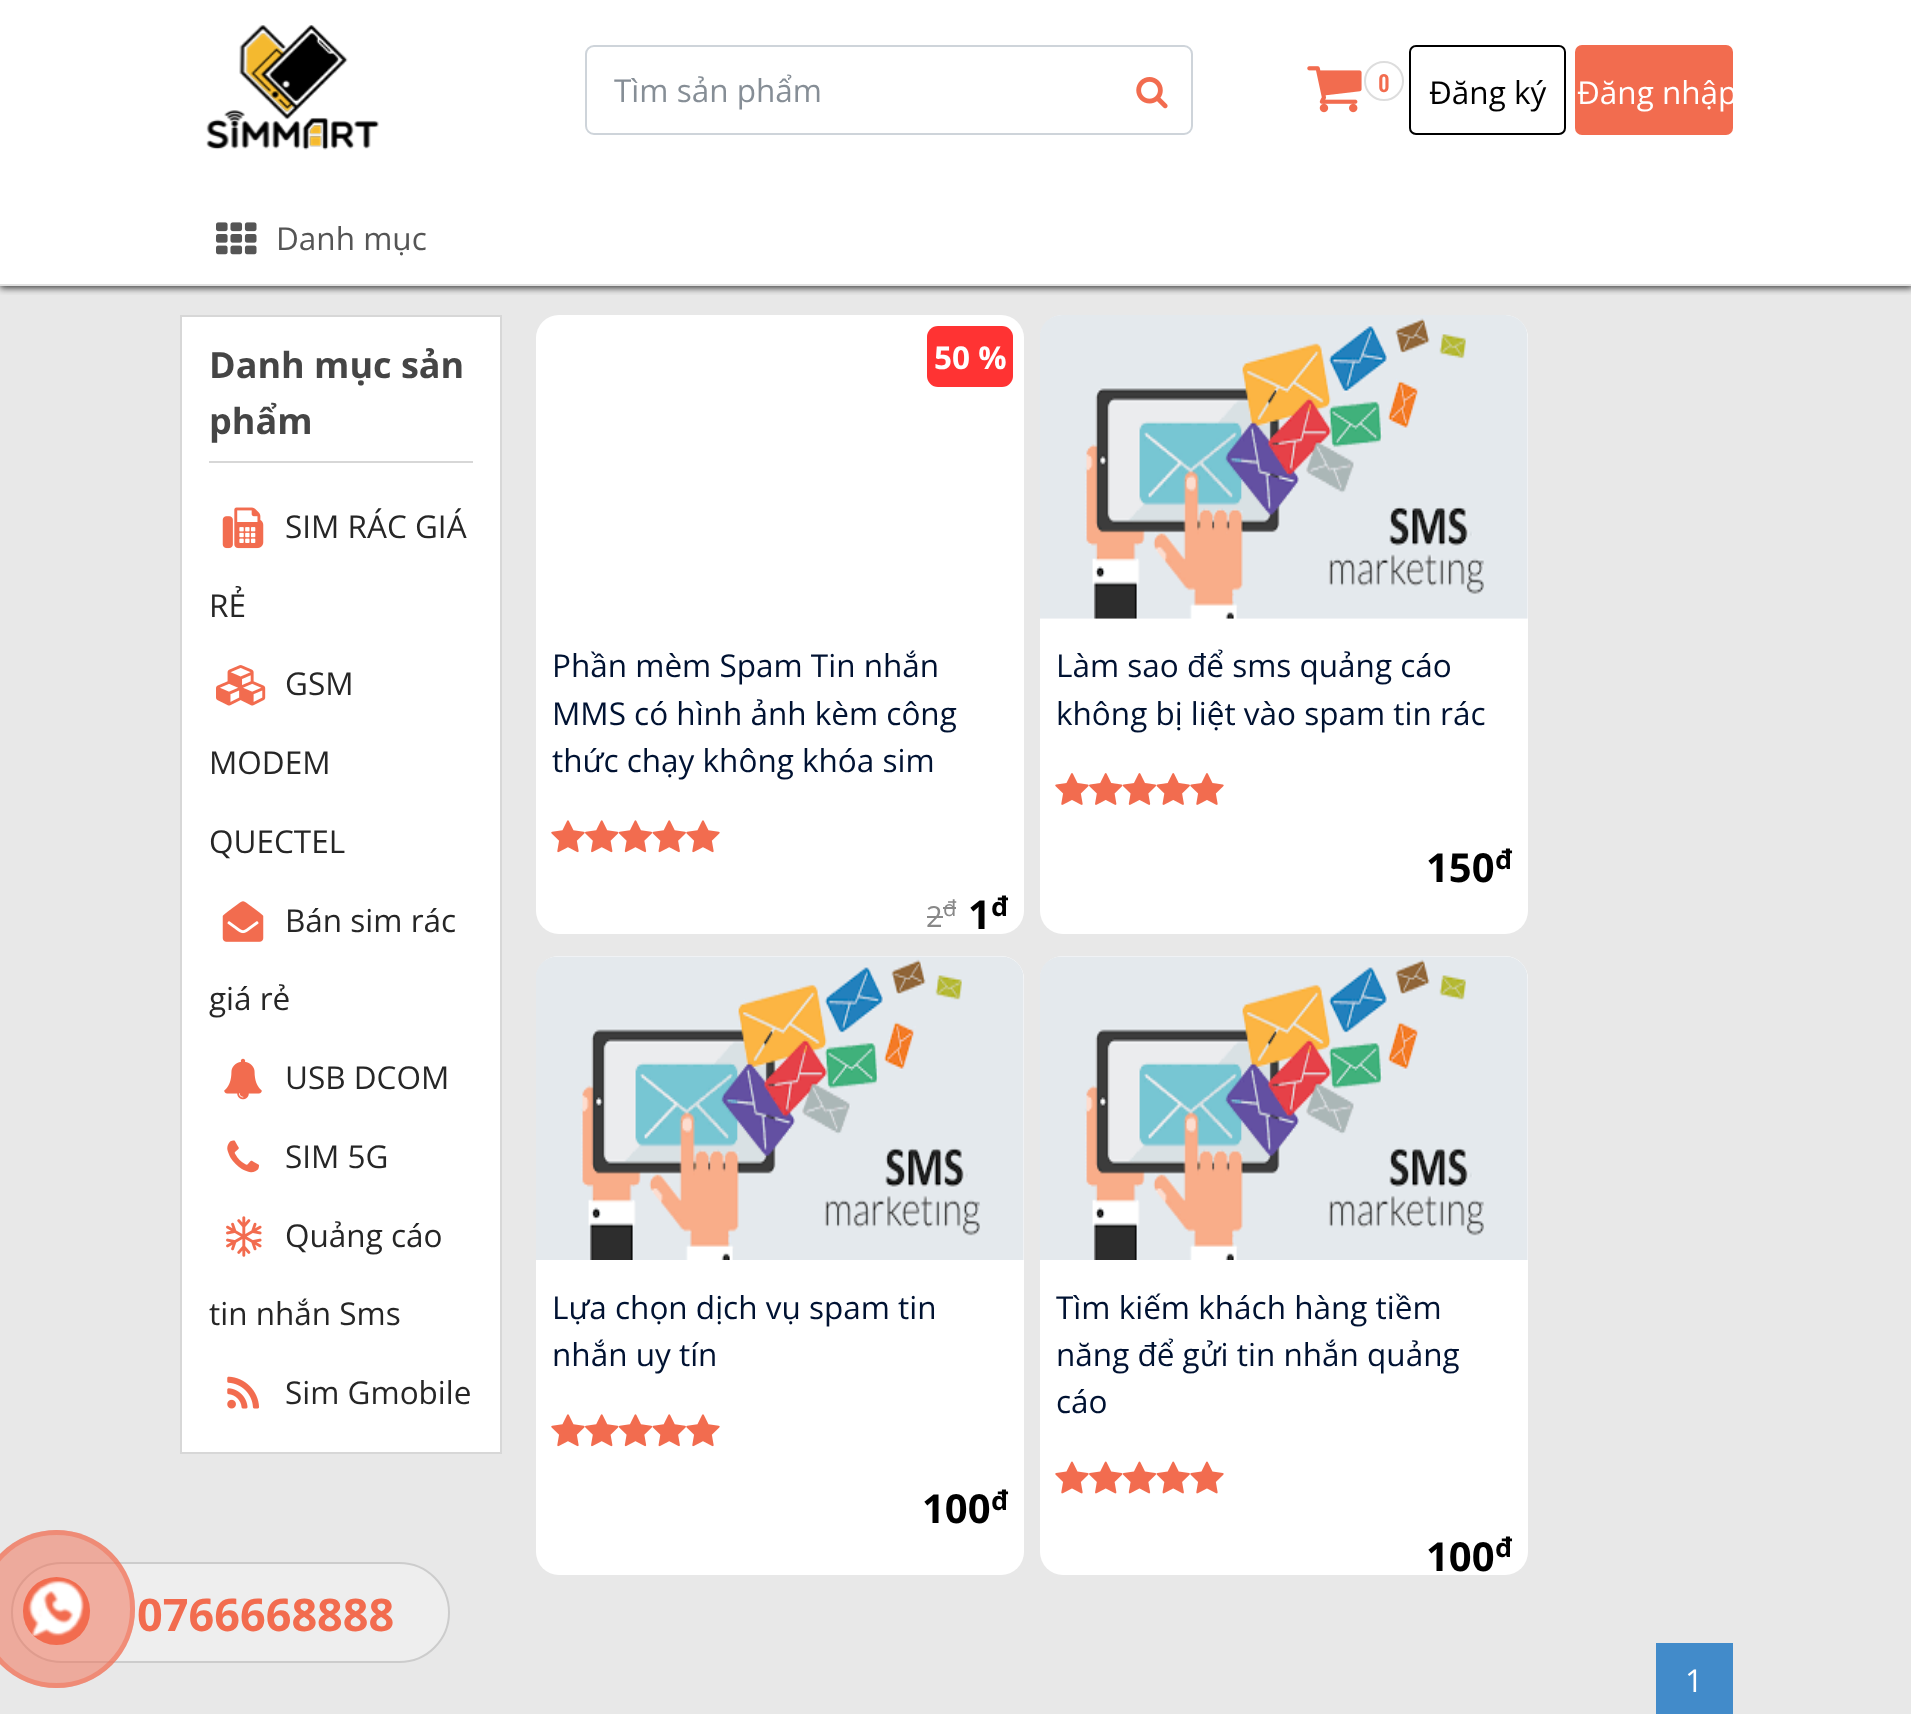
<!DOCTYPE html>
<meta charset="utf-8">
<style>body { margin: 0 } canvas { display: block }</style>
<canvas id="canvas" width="1911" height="1714"></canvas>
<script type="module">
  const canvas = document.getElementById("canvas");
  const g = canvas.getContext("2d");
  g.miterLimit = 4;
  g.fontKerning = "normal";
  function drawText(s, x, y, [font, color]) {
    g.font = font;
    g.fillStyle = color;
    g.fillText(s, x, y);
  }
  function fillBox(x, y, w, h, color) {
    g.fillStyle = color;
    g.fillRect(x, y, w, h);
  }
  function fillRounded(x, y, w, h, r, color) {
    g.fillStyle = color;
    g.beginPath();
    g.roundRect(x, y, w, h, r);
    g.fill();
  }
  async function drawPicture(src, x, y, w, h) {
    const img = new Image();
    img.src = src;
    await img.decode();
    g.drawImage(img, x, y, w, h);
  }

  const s1 = ["31.5px Open Sans", "#868E96"];
  const s2 = ["500 22px Oswald", "#F26C4F"];
  const s3 = ["31.5px Open Sans", "#000000"];
  const s4 = ["31.5px Open Sans", "#FFFFFF"];
  const s5 = ["31.5px Open Sans", "#555555"];
  const s6 = ["bold 36px Open Sans", "#454545"];
  const s7 = ["31.5px Open Sans", "#262626"];
  const s8 = ["bold 31.5px Open Sans", "#FFFFFF"];
  const s9 = ["31.5px Open Sans", "#001232"];
  const s10 = ["29px Open Sans", "#888888"];
  const s11 = ["22px Open Sans", "#888888"];
  const s12 = ["bold 40px Open Sans", "#000000"];
  const s13 = ["bold 27px Open Sans", "#000000"];
  const s14 = ["bold 45px Open Sans", "#F26C4F"];

  fillBox(0, 0, 1911, 1714, "#E8E8E8");
  fillBox(0, 0, 1911, 284, "#FFFFFF");
  g.save();
  g.beginPath();
  g.rect(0, 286, 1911, 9);
  g.clip();
  g.fillStyle = "rgba(0, 0, 0, 0.75)";
  g.filter = "blur(3.5px)";
  g.beginPath();
  g.rect(0, 2, 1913, 286);
  g.fill();
  g.filter = "none";
  g.restore();
  fillBox(0, 284, 1911, 2, "#E1E1E1");
  g.beginPath();
  g.roundRect(586, 46, 606, 88, 8);
  g.strokeStyle = "#CED4DA";
  g.lineWidth = 2;
  g.stroke();
  drawText("Tìm sản phẩm", 614, 102, s1);
  await drawPicture("pic1.png", 1136, 77, 32, 32);
  await drawPicture("pic2.png", 1307, 66, 55, 47);
  g.beginPath();
  g.arc(1384, 81, 19, 0, Math.PI * 2);
  g.strokeStyle = "#DDDDDD";
  g.stroke();
  drawText("0", 1378, 92, s2);
  g.beginPath();
  g.roundRect(1410, 46, 155, 88, 6);
  g.strokeStyle = "#000000";
  g.stroke();
  drawText("Đăng ký", 1429, 104, s3);
  fillRounded(1575, 45, 158, 90, 7, "#F26C4F");
  drawText("Đăng nhập", 1577, 104, s4);
  await drawPicture("pic3.png", 206, 25, 173, 125);
  await drawPicture("pic4.png", 216, 222, 41, 33);
  drawText("Danh mục", 276, 250, s5);
  g.fillStyle = "#FFFFFF";
  g.beginPath();
  g.rect(181, 316, 320, 1137);
  g.fill();
  g.strokeStyle = "#D7D7D7";
  g.stroke();
  fillBox(209, 461, 264, 2, "#D7D7D7");
  drawText("Danh mục sản", 209, 378, s6);
  drawText("phẩm", 209, 434, s6);
  await drawPicture("pic5.png", 222, 507, 42, 42);
  drawText("SIM RÁC GIÁ", 285, 538, s7);
  drawText("RẺ", 209, 617, s7);
  await drawPicture("pic6.png", 216, 665, 50, 41);
  drawText("GSM", 285, 695, s7);
  drawText("MODEM", 209, 774, s7);
  drawText("QUECTEL", 209, 853, s7);
  await drawPicture("pic7.png", 222, 901, 42, 41);
  drawText("Bán sim rác", 285, 932, s7);
  drawText("giá rẻ", 209, 1010, s7);
  await drawPicture("pic8.png", 224, 1058, 38, 42);
  drawText("USB DCOM", 285, 1089, s7);
  await drawPicture("pic9.png", 227, 1140, 33, 33);
  drawText("SIM 5G", 285, 1168, s7);
  await drawPicture("pic10.png", 226, 1216, 36, 41);
  drawText("Quảng cáo", 285, 1247, s7);
  drawText("tin nhắn Sms", 209, 1325, s7);
  await drawPicture("pic11.png", 227, 1376, 33, 33);
  drawText("Sim Gmobile", 285, 1404, s7);
  fillRounded(536, 315, 488, 619, 23, "#FFFFFF");
  fillRounded(927, 326, 86, 61, 11, "#FF3333");
  drawText("50 %", 934, 369, s8);
  drawText("Phần mèm Spam Tin nhắn", 552, 677, s9);
  drawText("MMS có hình ảnh kèm công", 552, 725, s9);
  drawText("thức chạy không khóa sim", 552, 772, s9);
  await drawPicture("pic12.png", 551, 820, 34, 33);
  await drawPicture("pic13.png", 585, 820, 34, 33);
  await drawPicture("pic14.png", 618, 820, 35, 33);
  await drawPicture("pic15.png", 652, 820, 34, 33);
  await drawPicture("pic12.png", 686, 820, 34, 33);
  drawText("2", 926, 927, s10);
  fillBox(927, 916, 16, 2, "#888888");
  drawText("đ", 943, 916, s11);
  fillBox(943, 907, 13, 2, "#888888");
  drawText("1", 968, 929, s12);
  drawText("đ", 991, 916, s13);
  fillRounded(1040, 315, 488, 619, 23, "#FFFFFF");
  await drawPicture("pic16.png", 1040, 315, 488, 304);
  drawText("Làm sao để sms quảng cáo", 1056, 677, s9);
  drawText("không bị liệt vào spam tin rác", 1056, 725, s9);
  await drawPicture("pic17.png", 1055, 773, 34, 32);
  await drawPicture("pic18.png", 1089, 773, 34, 32);
  await drawPicture("pic19.png", 1122, 773, 35, 32);
  await drawPicture("pic20.png", 1156, 773, 34, 32);
  await drawPicture("pic17.png", 1190, 773, 34, 32);
  drawText("150", 1426, 882, s12);
  drawText("đ", 1495, 869, s13);
  fillRounded(536, 956, 488, 619, 23, "#FFFFFF");
  await drawPicture("pic21.png", 536, 956, 488, 304);
  drawText("Lựa chọn dịch vụ spam tin", 552, 1319, s9);
  drawText("nhắn uy tín", 552, 1366, s9);
  await drawPicture("pic12.png", 551, 1414, 34, 33);
  await drawPicture("pic13.png", 585, 1414, 34, 33);
  await drawPicture("pic14.png", 618, 1414, 35, 33);
  await drawPicture("pic15.png", 652, 1414, 34, 33);
  await drawPicture("pic12.png", 686, 1414, 34, 33);
  drawText("100", 922, 1523, s12);
  drawText("đ", 991, 1510, s13);
  fillRounded(1040, 956, 488, 619, 23, "#FFFFFF");
  await drawPicture("pic22.png", 1040, 956, 488, 304);
  drawText("Tìm kiếm khách hàng tiềm", 1056, 1319, s9);
  drawText("năng để gửi tin nhắn quảng", 1056, 1366, s9);
  drawText("cáo", 1056, 1413, s9);
  await drawPicture("pic23.png", 1055, 1461, 34, 33);
  await drawPicture("pic24.png", 1089, 1461, 34, 33);
  await drawPicture("pic25.png", 1122, 1461, 35, 33);
  await drawPicture("pic26.png", 1156, 1461, 34, 33);
  await drawPicture("pic23.png", 1190, 1461, 34, 33);
  drawText("100", 1426, 1571, s12);
  drawText("đ", 1495, 1557, s13);
  fillBox(1656, 1643, 77, 71, "#428BCA");
  drawText("1", 1685, 1692, s4);
  g.fillStyle = "#EEEEEE";
  g.beginPath();
  g.roundRect(12, 1563, 437, 99, 49.5);
  g.fill();
  g.strokeStyle = "#CCCCCC";
  g.stroke();
  fillRounded(-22, 1530, 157, 158, 78.5, "rgba(242, 108, 79, 0.5)");
  g.beginPath();
  g.roundRect(-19.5, 1532.5, 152, 153, 76);
  g.strokeStyle = "rgba(242, 108, 79, 0.5)";
  g.lineWidth = 5;
  g.stroke();
  fillRounded(23, 1577, 67, 68, 33.5, "#F26C4F");
  await drawPicture("pic27.png", 28, 1580, 56, 56);
  drawText("0766668888", 137, 1631, s14);
</script>
